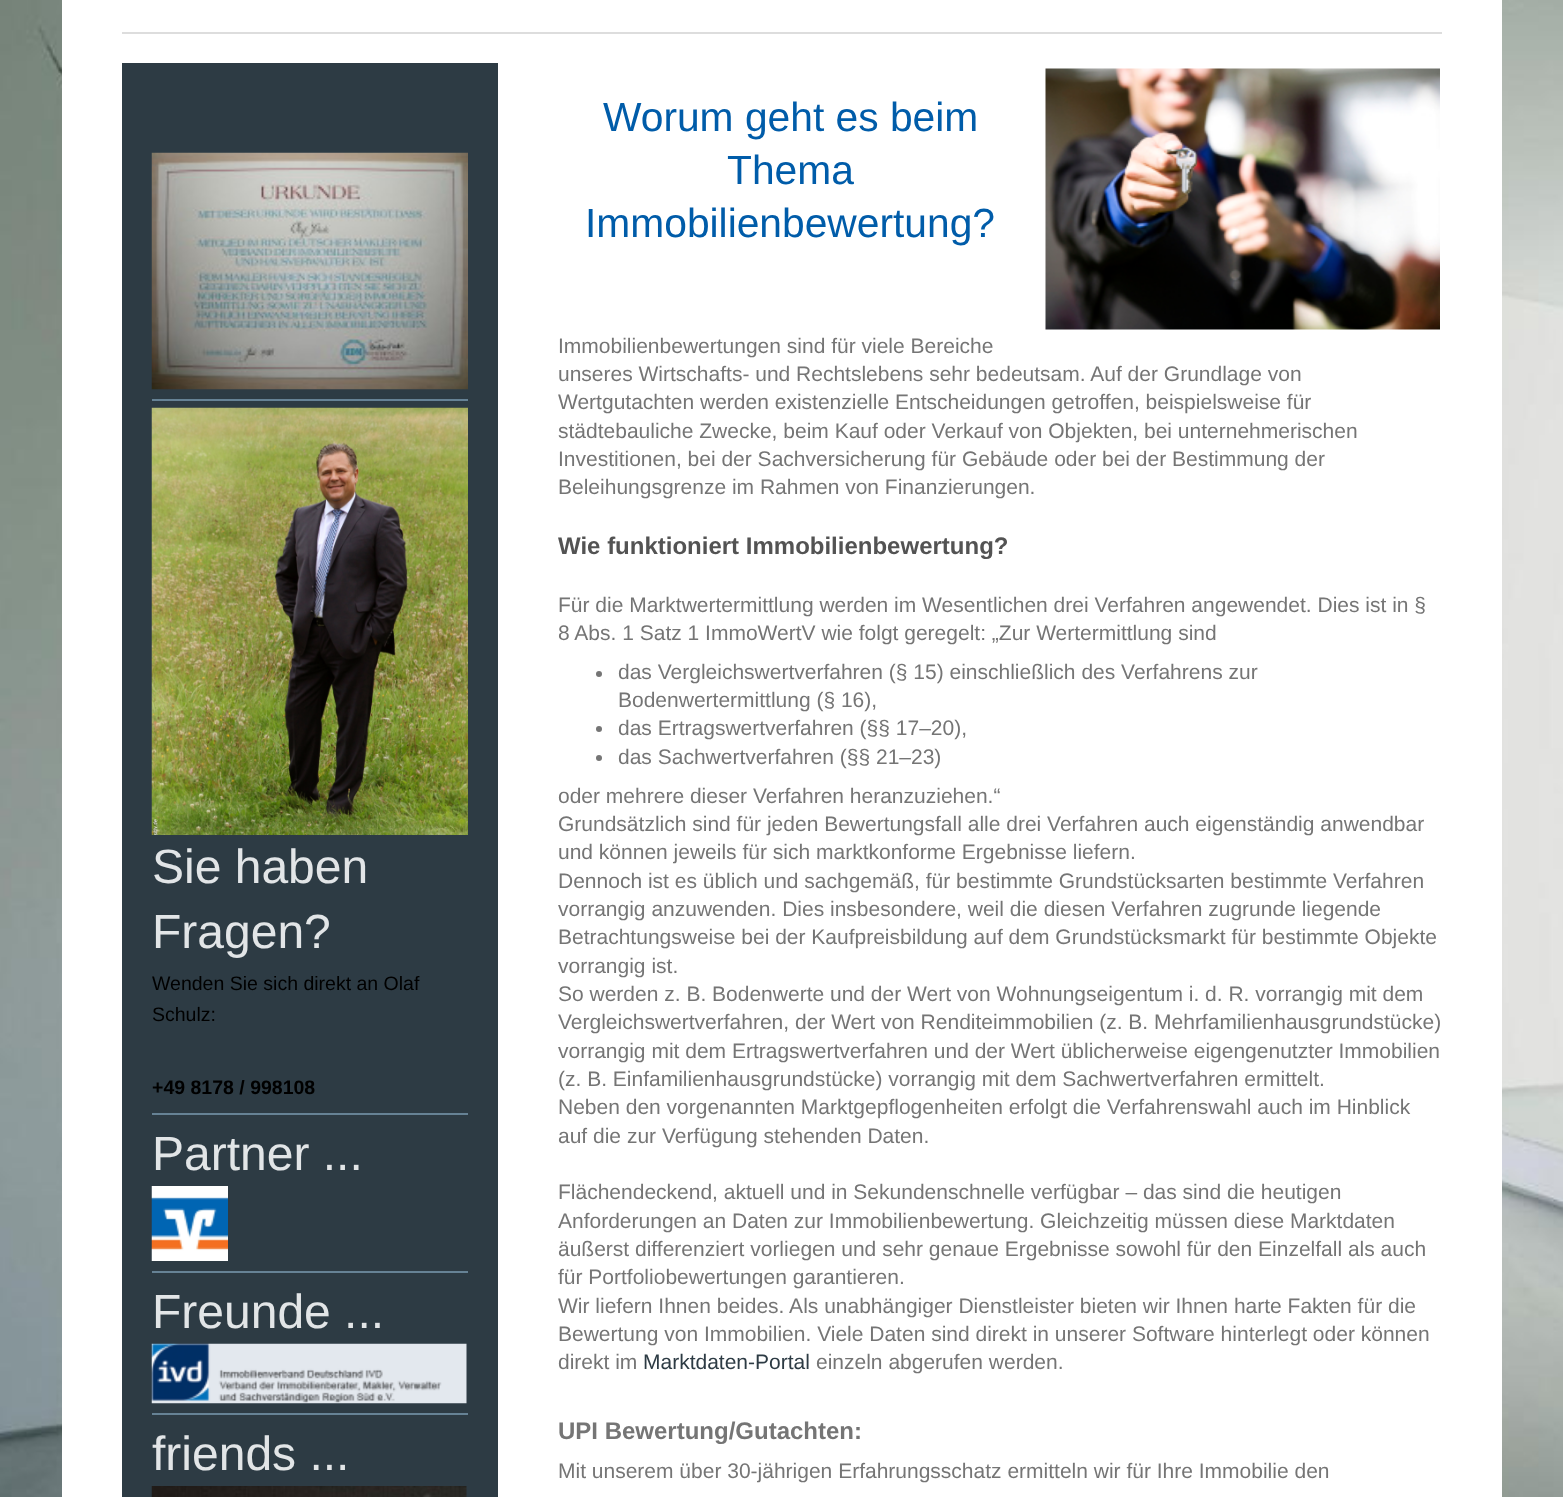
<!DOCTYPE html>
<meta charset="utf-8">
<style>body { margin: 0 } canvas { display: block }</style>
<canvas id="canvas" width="1563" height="1497"></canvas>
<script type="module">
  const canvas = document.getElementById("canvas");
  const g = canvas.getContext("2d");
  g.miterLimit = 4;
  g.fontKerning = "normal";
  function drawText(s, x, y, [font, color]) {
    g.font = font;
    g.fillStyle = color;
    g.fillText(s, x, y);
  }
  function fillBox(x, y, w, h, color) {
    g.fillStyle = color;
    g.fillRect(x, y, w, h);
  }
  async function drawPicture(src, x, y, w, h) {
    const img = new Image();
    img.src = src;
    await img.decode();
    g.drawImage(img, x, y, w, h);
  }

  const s1 = ["48px Liberation Sans", "#E2E5E7"];
  const s2 = ["19.5px Liberation Sans", "#000000"];
  const s3 = ["bold 19.5px Liberation Sans", "#000000"];
  const s4 = ["40.75px Liberation Sans", "#005CA9"];
  const s5 = ["21px Liberation Sans", "#757575"];
  const s6 = ["bold 24px Liberation Sans", "#535353"];
  const s7 = ["21px Liberation Sans", "#2D3B44"];
  const s8 = ["bold 24px Liberation Sans", "#757575"];

  fillBox(0, 0, 1563, 1497, "#FFFFFF");
  await drawPicture("pic1.png", 0, 0, 1563, 1497);
  fillBox(62, 0, 1440, 1497, "#FFFFFF");
  fillBox(122, 32, 1320, 2, "#DDDDDD");
  fillBox(122, 63, 376, 1434, "#2D3B44");
  await drawPicture("pic2.png", 151, 152, 317, 238);
  fillBox(152, 399, 316, 2, "#668295");
  await drawPicture("pic3.png", 151, 407, 317, 428);
  drawText("Sie haben", 152, 883, s1);
  drawText("Fragen?", 152, 948, s1);
  drawText("Wenden Sie sich direkt an Olaf", 152, 990, s2);
  drawText("Schulz:", 152, 1021, s2);
  drawText("+49 8178 / 998108", 152, 1094, s3);
  fillBox(152, 1113, 316, 2, "#668295");
  drawText("Partner ...", 152, 1170, s1);
  await drawPicture("pic4.png", 151, 1186, 77, 75);
  fillBox(152, 1271, 316, 2, "#668295");
  drawText("Freunde ...", 152, 1328, s1);
  await drawPicture("pic5.png", 151, 1343, 316, 61);
  fillBox(152, 1413, 316, 2, "#668295");
  drawText("friends ...", 152, 1470, s1);
  await drawPicture("pic6.png", 151, 1486, 316, 11);
  await drawPicture("pic7.png", 1045, 68, 395, 262);
  drawText("Worum geht es beim", 603, 131, s4);
  drawText("Thema", 727, 184, s4);
  drawText("Immobilienbewertung?", 585, 237, s4);
  drawText("Immobilienbewertungen sind für viele Bereiche", 558, 353, s5);
  drawText("unseres Wirtschafts- und Rechtslebens sehr bedeutsam. Auf der Grundlage von", 558, 381, s5);
  drawText("Wertgutachten werden existenzielle Entscheidungen getroffen, beispielsweise für", 558, 409, s5);
  drawText("städtebauliche Zwecke, beim Kauf oder Verkauf von Objekten, bei unternehmerischen", 558, 438, s5);
  drawText("Investitionen, bei der Sachversicherung für Gebäude oder bei der Bestimmung der", 558, 466, s5);
  drawText("Beleihungsgrenze im Rahmen von Finanzierungen.", 558, 494, s5);
  drawText("Wie funktioniert Immobilienbewertung?", 558, 554, s6);
  drawText("Für die Marktwertermittlung werden im Wesentlichen drei Verfahren angewendet. Dies ist in §", 558, 612, s5);
  drawText("8 Abs. 1 Satz 1 ImmoWertV wie folgt geregelt: „Zur Wertermittlung sind", 558, 640, s5);
  g.beginPath();
  g.arc(599, 674, 3, 0, Math.PI * 2);
  g.fill();
  drawText("das Vergleichswertverfahren (§ 15) einschließlich des Verfahrens zur", 618, 679, s5);
  drawText("Bodenwertermittlung (§ 16),", 618, 707, s5);
  g.beginPath();
  g.arc(599, 729, 3, 0, Math.PI * 2);
  g.fill();
  drawText("das Ertragswertverfahren (§§ 17–20),", 618, 735, s5);
  g.beginPath();
  g.arc(599, 758, 3, 0, Math.PI * 2);
  g.fill();
  drawText("das Sachwertverfahren (§§ 21–23)", 618, 764, s5);
  drawText("oder mehrere dieser Verfahren heranzuziehen.“", 558, 803, s5);
  drawText("Grundsätzlich sind für jeden Bewertungsfall alle drei Verfahren auch eigenständig anwendbar", 558, 831, s5);
  drawText("und können jeweils für sich marktkonforme Ergebnisse liefern.", 558, 859, s5);
  drawText("Dennoch ist es üblich und sachgemäß, für bestimmte Grundstücksarten bestimmte Verfahren", 558, 888, s5);
  drawText("vorrangig anzuwenden. Dies insbesondere, weil die diesen Verfahren zugrunde liegende", 558, 916, s5);
  drawText("Betrachtungsweise bei der Kaufpreisbildung auf dem Grundstücksmarkt für bestimmte Objekte", 558, 944, s5);
  drawText("vorrangig ist.", 558, 973, s5);
  drawText("So werden z. B. Bodenwerte und der Wert von Wohnungseigentum i. d. R. vorrangig mit dem", 558, 1001, s5);
  drawText("Vergleichswertverfahren, der Wert von Renditeimmobilien (z. B. Mehrfamilienhausgrundstücke)", 558, 1029, s5);
  drawText("vorrangig mit dem Ertragswertverfahren und der Wert üblicherweise eigengenutzter Immobilien", 558, 1058, s5);
  drawText("(z. B. Einfamilienhausgrundstücke) vorrangig mit dem Sachwertverfahren ermittelt.", 558, 1086, s5);
  drawText("Neben den vorgenannten Marktgepflogenheiten erfolgt die Verfahrenswahl auch im Hinblick", 558, 1114, s5);
  drawText("auf die zur Verfügung stehenden Daten.", 558, 1143, s5);
  drawText("Flächendeckend, aktuell und in Sekundenschnelle verfügbar – das sind die heutigen", 558, 1199, s5);
  drawText("Anforderungen an Daten zur Immobilienbewertung. Gleichzeitig müssen diese Marktdaten", 558, 1228, s5);
  drawText("äußerst differenziert vorliegen und sehr genaue Ergebnisse sowohl für den Einzelfall als auch", 558, 1256, s5);
  drawText("für Portfoliobewertungen garantieren.", 558, 1284, s5);
  drawText("Wir liefern Ihnen beides. Als unabhängiger Dienstleister bieten wir Ihnen harte Fakten für die", 558, 1313, s5);
  drawText("Bewertung von Immobilien. Viele Daten sind direkt in unserer Software hinterlegt oder können", 558, 1341, s5);
  drawText("direkt im", 558, 1369, s5);
  drawText("Marktdaten-Portal", 643, 1369, s7);
  drawText("einzeln abgerufen werden.", 816, 1369, s5);
  drawText("UPI Bewertung/Gutachten:", 558, 1439, s8);
  drawText("Mit unserem über 30-jährigen Erfahrungsschatz ermitteln wir für Ihre Immobilie den", 558, 1478, s5);
</script>
